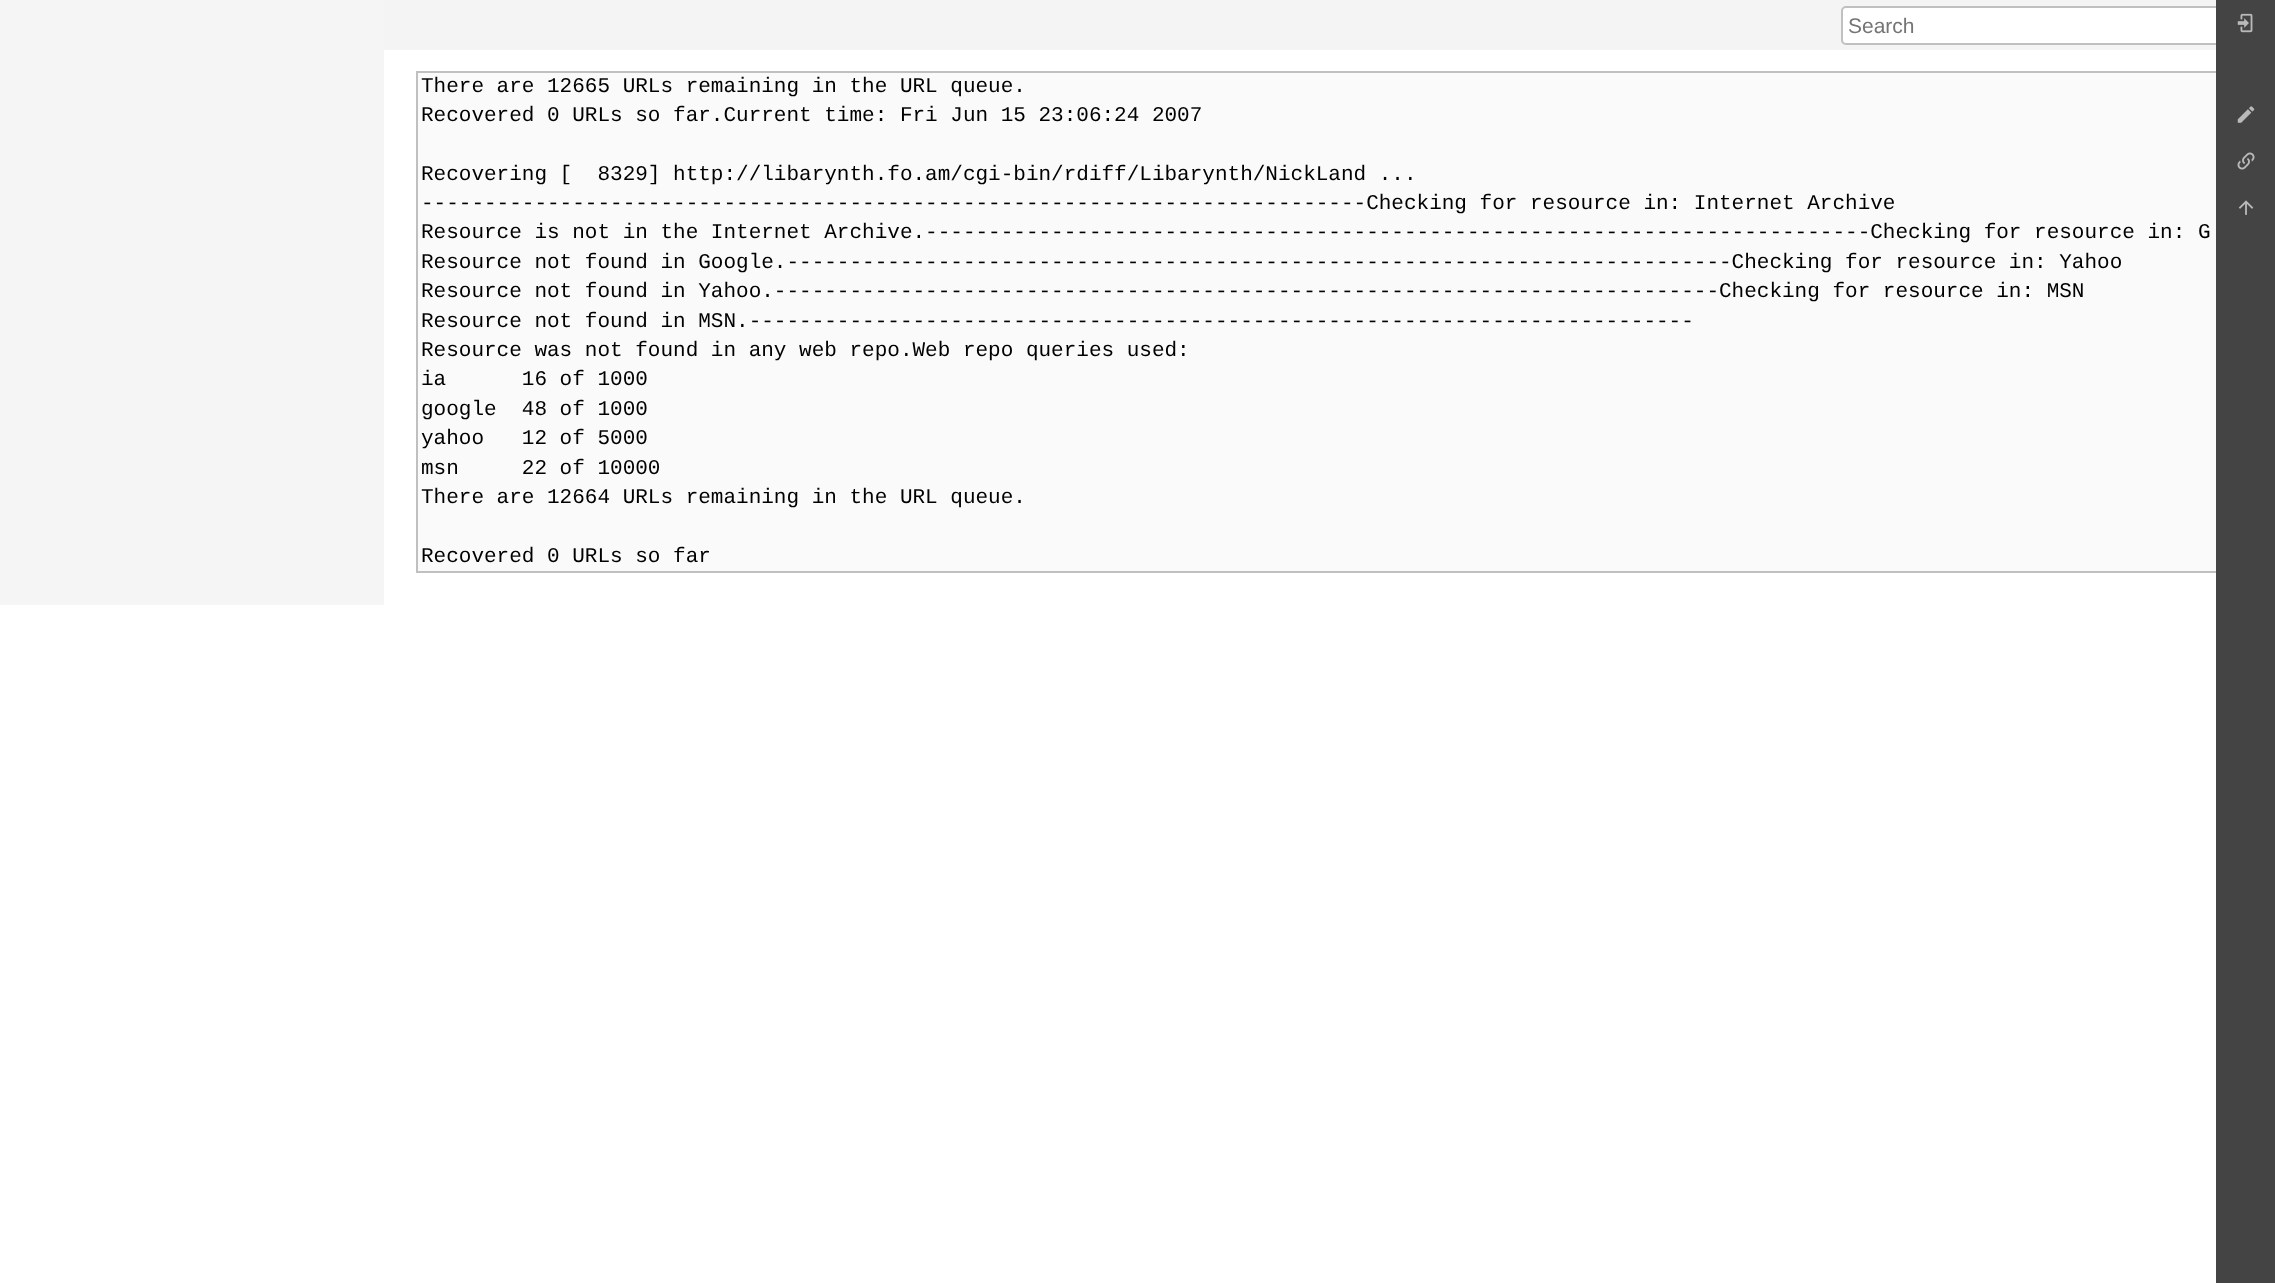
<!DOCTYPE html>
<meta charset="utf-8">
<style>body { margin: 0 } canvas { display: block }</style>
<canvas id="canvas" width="2275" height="1283"></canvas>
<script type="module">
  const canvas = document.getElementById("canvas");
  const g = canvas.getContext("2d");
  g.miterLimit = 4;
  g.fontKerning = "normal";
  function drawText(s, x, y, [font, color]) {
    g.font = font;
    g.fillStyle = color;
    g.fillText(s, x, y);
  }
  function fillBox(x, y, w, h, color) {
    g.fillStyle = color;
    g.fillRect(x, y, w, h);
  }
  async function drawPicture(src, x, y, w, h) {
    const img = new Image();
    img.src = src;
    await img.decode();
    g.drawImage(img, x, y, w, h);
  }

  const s1 = ["21px Liberation Sans", "#757575"];
  const s2 = ["21px Liberation Mono", "#000000"];

  fillBox(0, 0, 2275, 1283, "#FFFFFF");
  fillBox(0, 0, 384, 605, "#F5F5F5");
  fillBox(384, 0, 1832, 50, "#F4F4F4");
  g.fillStyle = "#FFFFFF";
  g.beginPath();
  g.roundRect(1842, 7, 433, 37, 4);
  g.fill();
  g.strokeStyle = "#C0C0C0";
  g.lineWidth = 2;
  g.stroke();
  drawText("Search", 1848, 33, s1);
  fillBox(418, 73, 1798, 498, "#FAFAFA");
  g.strokeRect(417, 72, 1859, 500);
  fillBox(2216, 0, 59, 1283, "#444444");
  await drawPicture("pic1.png", 2237, 13, 16, 20);
  await drawPicture("pic2.png", 2237, 106, 18, 17);
  await drawPicture("pic3.png", 2237, 152, 18, 18);
  await drawPicture("pic4.png", 2238, 200, 16, 15);
  drawText("There are 12665 URLs remaining in the URL queue.", 421, 92, s2);
  drawText("Recovered 0 URLs so far.Current time: Fri Jun 15 23:06:24 2007", 421, 121, s2);
  drawText("Recovering [  8329] http://libarynth.fo.am/cgi-bin/rdiff/Libarynth/NickLand ...", 421, 180, s2);
  drawText("---------------------------------------------------------------------------Checking for resource in: Internet Archive", 421, 209, s2);
  drawText("Resource is not in the Internet Archive.---------------------------------------------------------------------------Checking for resource in: G", 421, 238, s2);
  drawText("Resource not found in Google.---------------------------------------------------------------------------Checking for resource in: Yahoo", 421, 268, s2);
  drawText("Resource not found in Yahoo.---------------------------------------------------------------------------Checking for resource in: MSN", 421, 297, s2);
  drawText("Resource not found in MSN.---------------------------------------------------------------------------", 421, 327, s2);
  drawText("Resource was not found in any web repo.Web repo queries used:", 421, 356, s2);
  drawText("ia      16 of 1000", 421, 385, s2);
  drawText("google  48 of 1000", 421, 415, s2);
  drawText("yahoo   12 of 5000", 421, 444, s2);
  drawText("msn     22 of 10000", 421, 474, s2);
  drawText("There are 12664 URLs remaining in the URL queue.", 421, 503, s2);
  drawText("Recovered 0 URLs so far", 421, 562, s2);
</script>
